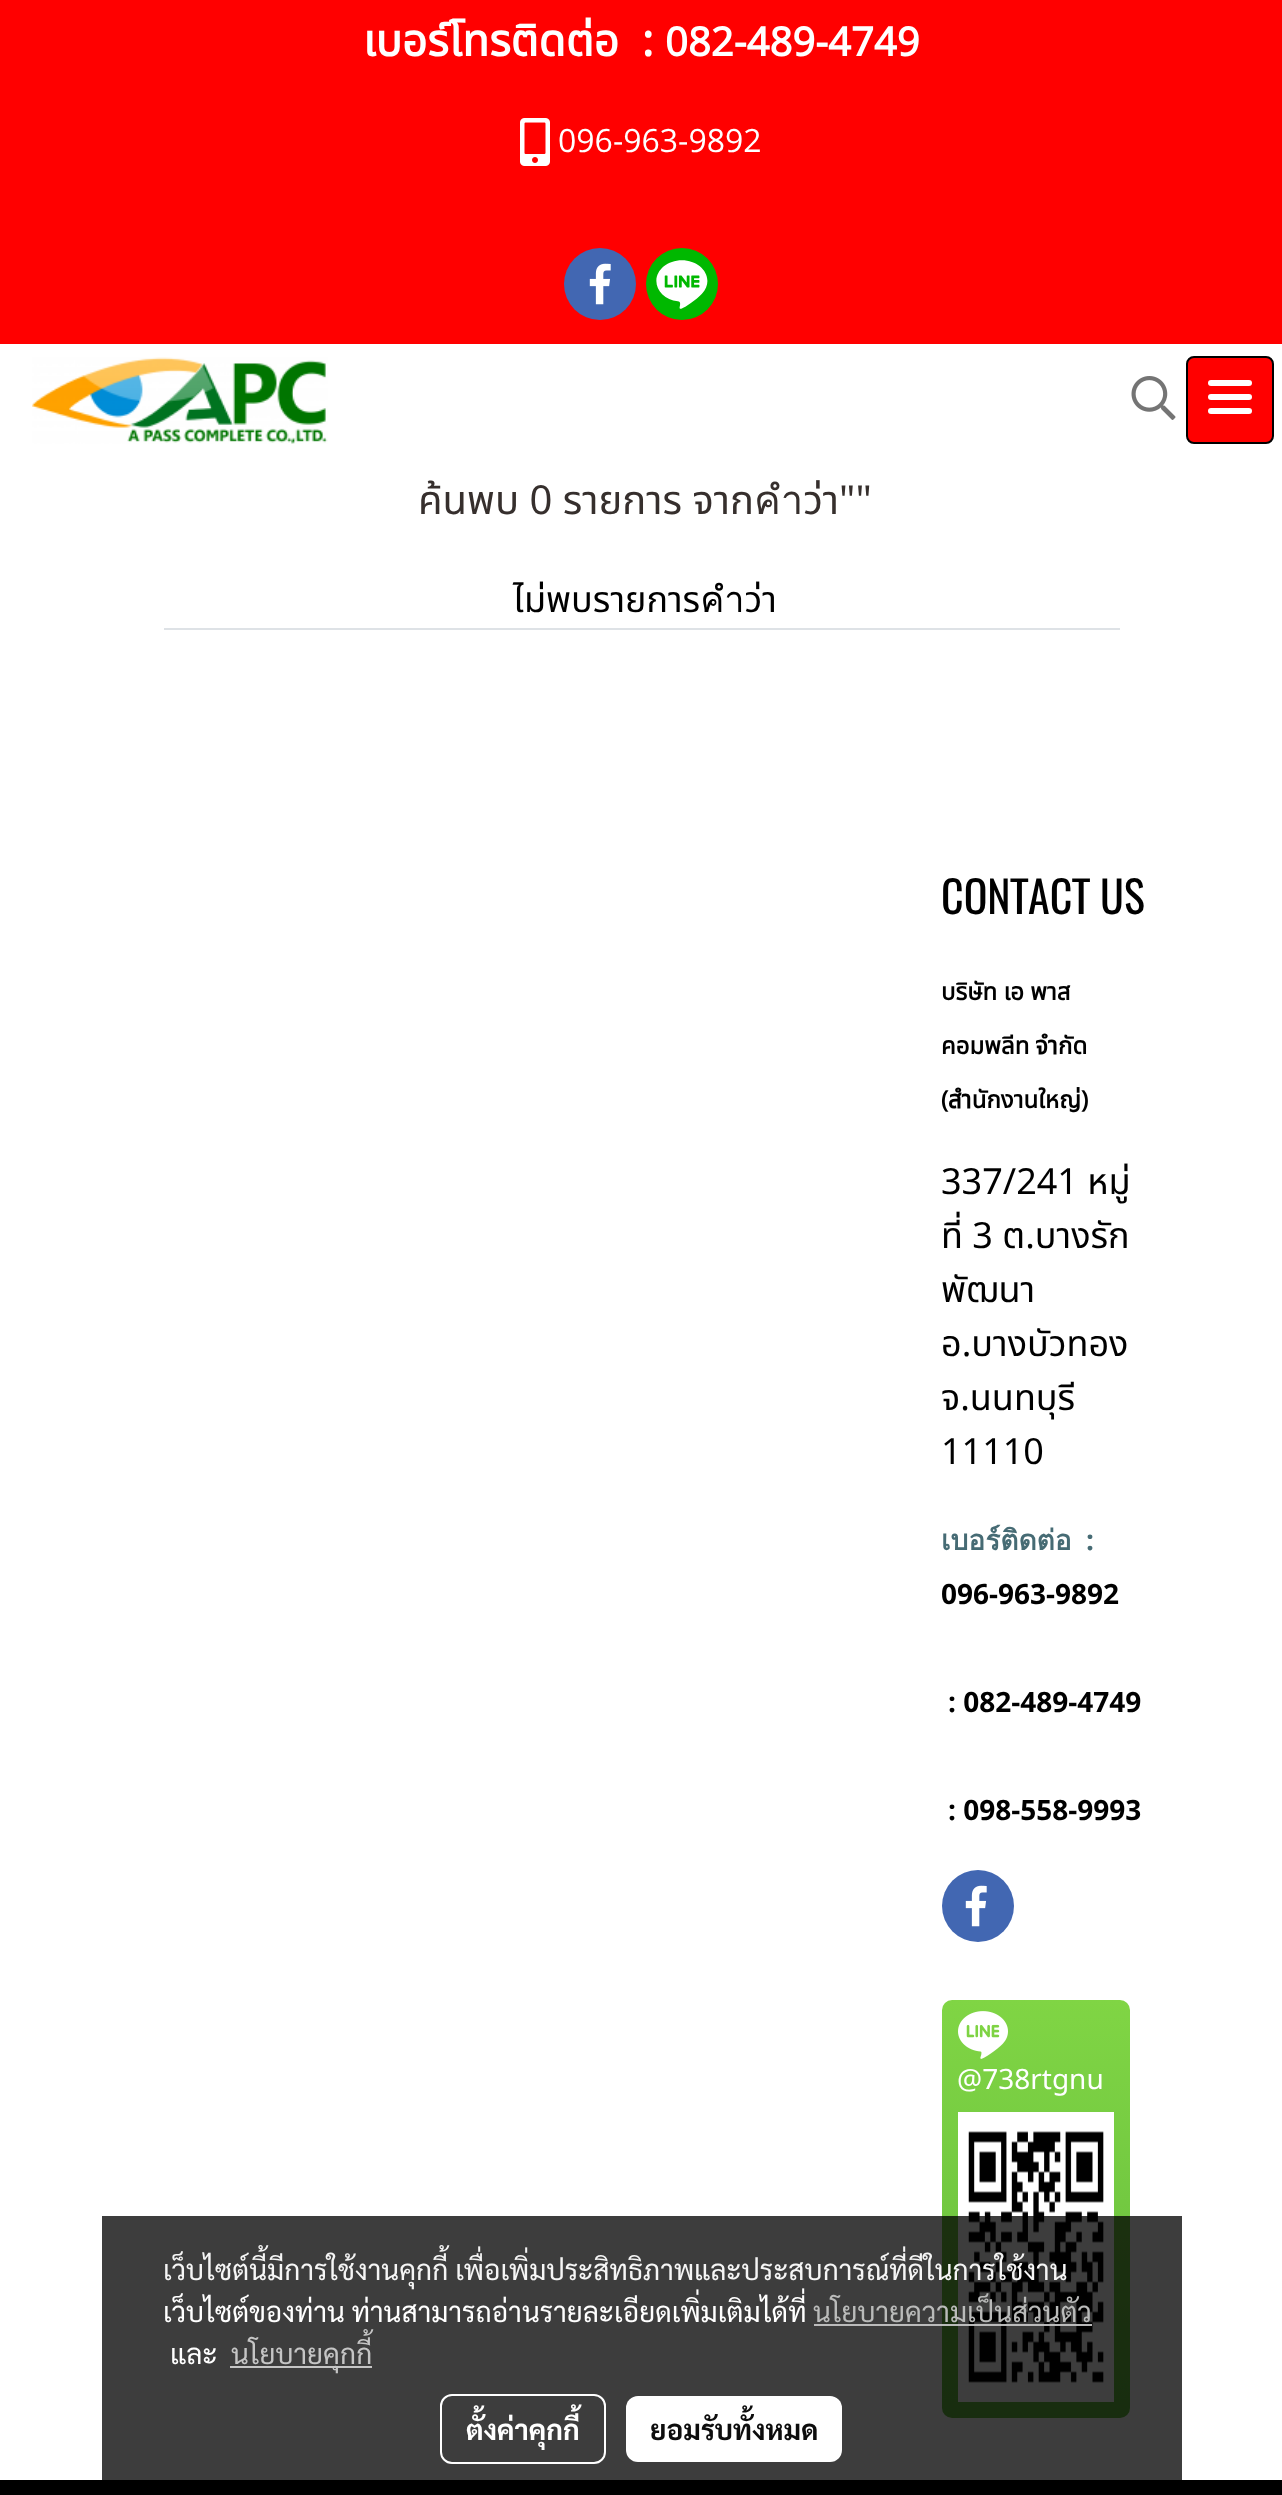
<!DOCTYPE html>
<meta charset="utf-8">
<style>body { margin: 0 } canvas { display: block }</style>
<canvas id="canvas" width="1282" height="2495"></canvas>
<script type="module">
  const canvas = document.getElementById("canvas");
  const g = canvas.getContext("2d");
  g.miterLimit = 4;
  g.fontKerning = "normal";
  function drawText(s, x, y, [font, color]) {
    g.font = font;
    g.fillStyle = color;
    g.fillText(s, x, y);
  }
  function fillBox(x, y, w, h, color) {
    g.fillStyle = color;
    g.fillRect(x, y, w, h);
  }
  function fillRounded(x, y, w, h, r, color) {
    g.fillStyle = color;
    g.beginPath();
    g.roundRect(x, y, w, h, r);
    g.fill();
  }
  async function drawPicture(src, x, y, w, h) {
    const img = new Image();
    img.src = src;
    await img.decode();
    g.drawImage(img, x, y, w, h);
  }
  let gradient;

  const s1 = ["bold 44px Noto Sans Thai", "#FFFFFF"];
  const s2 = ["bold 40px Noto Sans Thai", "#FFFFFF"];
  const s3 = ["32px Open Sans", "#FFFFFF"];
  const s4 = ["40px Noto Sans Thai", "#362F2D"];
  const s5 = ["36px Noto Sans Thai", "#000000"];
  const s6 = ["44px Oswald", "#000000"];
  const s7 = ["bold 24px Noto Sans Thai", "#000000"];
  const s8 = ["bold 28px Loma", "#466B74"];
  const s9 = ["bold 28px Open Sans", "#466B74"];
  const s10 = ["bold 28px Open Sans", "#000000"];
  const s11 = ["28px Noto Sans Thai", "#FFFFFF"];
  const s12 = ["28px Sarabun", "#F5F5F5"];
  const s13 = ["28px Sarabun", "#FFFFFF"];
  const s14 = ["28px Sarabun", "#BABBBA"];
  const s15 = ["28px Sarabun", "#C5C5C5"];
  const s16 = ["bold 28px Sarabun", "#FFFFFF"];
  const s17 = ["bold 28px Sarabun", "#0D0D0D"];

  fillBox(0, 0, 1282, 2495, "#FFFFFF");
  fillBox(0, 0, 1282, 344, "#FF0000");
  drawText("เบอร์โทรติดต่อ  :", 363, 56, s1);
  drawText("082-489-4749", 665, 56, s2);
  await drawPicture("pic1.png", 520, 118, 30, 48);
  drawText("096-963-9892", 558, 152, s3);
  g.fillStyle = "#4267B2";
  g.beginPath();
  g.arc(600, 284, 36, 0, Math.PI * 2);
  g.fill();
  await drawPicture("pic2.png", 589, 263, 22, 42);
  g.fillStyle = "#00B800";
  g.beginPath();
  g.arc(682, 284, 36, 0, Math.PI * 2);
  g.fill();
  await drawPicture("pic3.png", 656, 260, 52, 49);
  await drawPicture("pic4.png", 32, 357, 296, 87);
  await drawPicture("pic5.png", 1131, 376, 45, 44);
  g.fillStyle = "#FF0000";
  g.beginPath();
  g.roundRect(1187, 357, 86, 86, 7);
  g.fill();
  g.strokeStyle = "#000000";
  g.lineWidth = 2;
  g.stroke();
  fillRounded(1208, 394, 44, 6, 3, "#FFFFFF");
  fillRounded(1208, 380, 44, 6, 3, "#FFFFFF");
  fillRounded(1208, 408, 44, 6, 3, "#FFFFFF");
  drawText("ค้นพบ 0 รายการ จากคำว่า\"\"", 418, 514, s4);
  fillBox(164, 628, 956, 2, "#DEE2E6");
  drawText("ไม่พบรายการคำว่า", 513, 612, s5);
  drawText("CONTACT US", 941, 914, s6);
  drawText("บริษัท เอ พาส", 941, 1000, s7);
  drawText("คอมพลีท จำกัด", 941, 1054, s7);
  drawText("(สำนักงานใหญ่)", 941, 1108, s7);
  drawText("337/241 หมู่", 941, 1194, s5);
  drawText("ที่ 3 ต.บางรัก", 941, 1248, s5);
  drawText("พัฒนา", 941, 1302, s5);
  drawText("อ.บางบัวทอง", 941, 1356, s5);
  drawText("จ.นนทบุรี", 941, 1410, s5);
  drawText("11110", 941, 1464, s5);
  drawText("เบอร์ติดต่อ", 941, 1550, s8);
  drawText(":", 1086, 1550, s9);
  drawText("096-963-9892", 941, 1604, s10);
  drawText(": 082-489-4749", 948, 1712, s10);
  drawText(": 098-558-9993", 948, 1820, s10);
  g.fillStyle = "#4267B2";
  g.beginPath();
  g.arc(978, 1906, 36, 0, Math.PI * 2);
  g.fill();
  await drawPicture("pic2.png", 965, 1885, 22, 42);
  gradient = g.createLinearGradient(1036, 2000, 1036, 2418);
  gradient.addColorStop(0, "#80D544");
  gradient.addColorStop(1, "#65BC3E");
  g.fillStyle = gradient;
  g.beginPath();
  g.roundRect(942, 2000, 188, 418, 10);
  g.fill();
  await drawPicture("pic6.png", 958, 2011, 50, 48);
  drawText("@738rtgnu", 957, 2089, s11);
  await drawPicture("pic7.png", 958, 2112, 156, 290);
  fillBox(0, 2480, 1282, 15, "#000000");
  fillBox(102, 2216, 1080, 264, "rgba(0, 0, 0, 0.76)");
  drawText("เว็บไซต์นี้มีการใช้งานคุกกี้ เพื่อเพิ่มประสิทธิภาพและประสบการณ์ที่ดีในการใช้งาน", 163, 2280, s12);
  drawText("เว็บไซต์ของท่าน ท่านสามารถอ่านรายละเอียดเพิ่มเติมได้ที่", 163, 2322, s13);
  drawText("นโยบายความเป็นส่วนตัว", 813, 2322, s14);
  fillBox(814, 2324, 278, 2, "rgba(194, 194, 194, 0.95)");
  drawText("และ", 170, 2364, s13);
  fillBox(230, 2366, 142, 2, "#C5C5C5");
  drawText("นโยบายคุกกี้", 231, 2364, s15);
  g.beginPath();
  g.roundRect(441, 2395, 164, 68, 11);
  g.strokeStyle = "#FFFFFF";
  g.stroke();
  drawText("ตั้งค่าคุกกี้", 466, 2440, s16);
  fillRounded(626, 2396, 216, 66, 12, "#FFFFFF");
  drawText("ยอมรับทั้งหมด", 650, 2440, s17);
</script>
